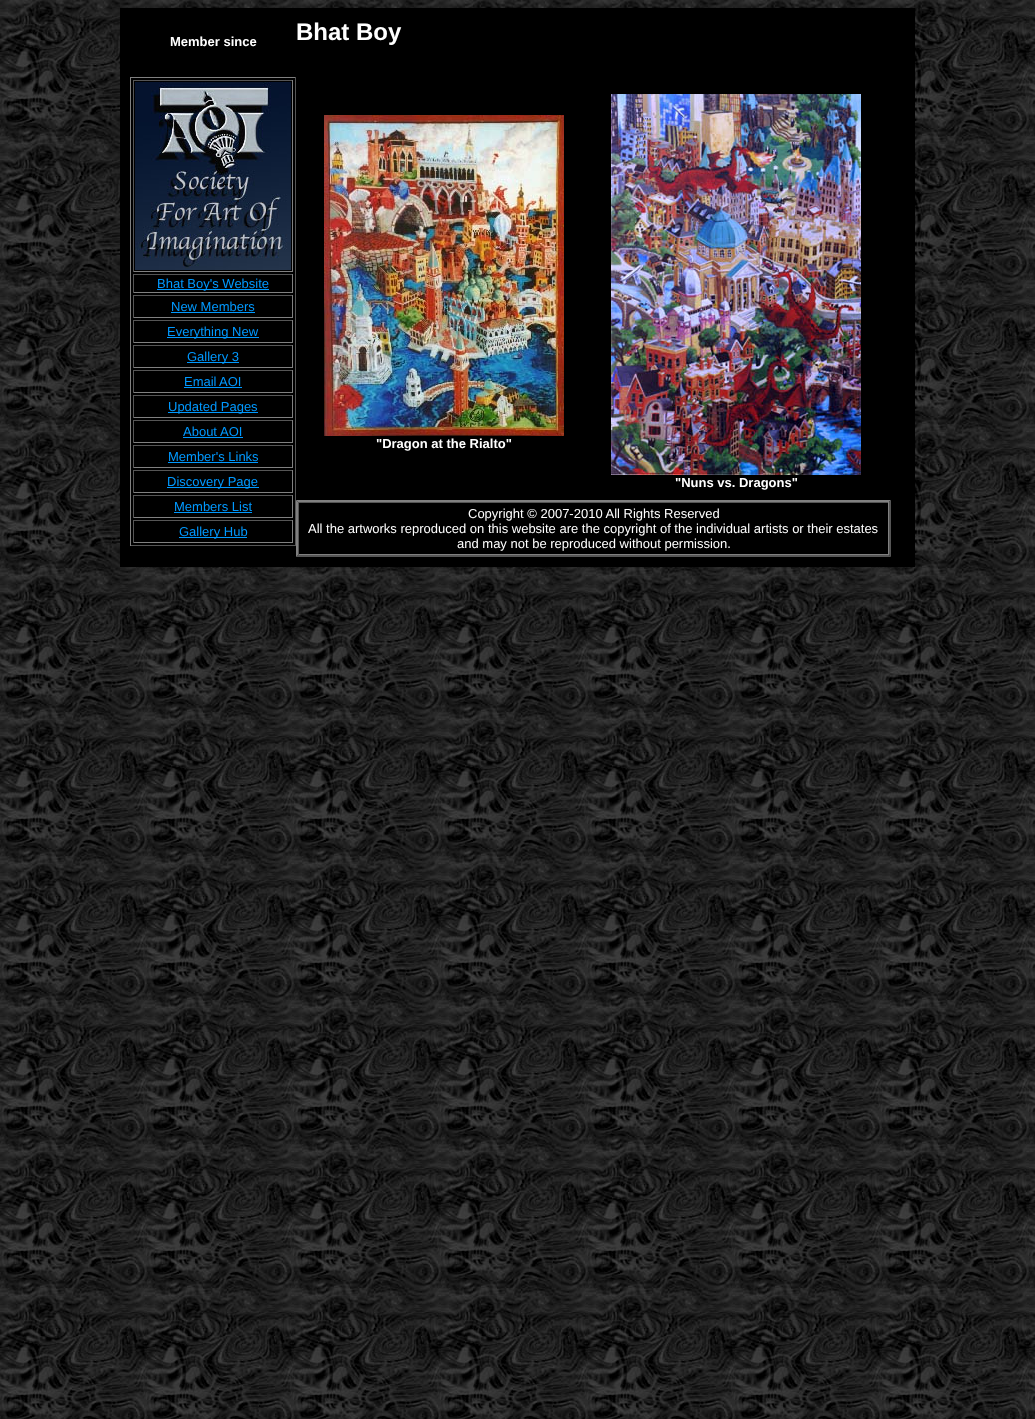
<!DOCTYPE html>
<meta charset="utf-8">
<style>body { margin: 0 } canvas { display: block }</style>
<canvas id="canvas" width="1035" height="1419"></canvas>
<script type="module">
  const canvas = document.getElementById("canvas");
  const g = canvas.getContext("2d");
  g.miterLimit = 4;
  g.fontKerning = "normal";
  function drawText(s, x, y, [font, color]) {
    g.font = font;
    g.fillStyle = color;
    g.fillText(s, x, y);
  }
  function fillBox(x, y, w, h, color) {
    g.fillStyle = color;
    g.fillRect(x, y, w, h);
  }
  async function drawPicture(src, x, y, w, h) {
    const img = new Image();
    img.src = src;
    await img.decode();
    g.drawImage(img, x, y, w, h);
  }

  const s1 = ["bold 13px Liberation Sans", "#FFFFFF"];
  const s2 = ["bold 24px Liberation Sans", "#FFFFFF"];
  const s3 = ["13px Liberation Sans", "#0099FF"];
  const s4 = ["13px Liberation Sans", "#FFFFFF"];

  fillBox(0, 0, 1035, 1419, "#FFFFFF");
  await drawPicture("pic1.png", 0, 0, 1035, 1419);
  fillBox(120, 8, 795, 559, "#000000");
  drawText("Member since", 170, 46, s1);
  drawText("Bhat Boy", 296, 40, s2);
  fillBox(130, 77, 166, 1, "#808080");
  fillBox(295, 77, 1, 469, "#555555");
  fillBox(130, 545, 166, 1, "#555555");
  fillBox(130, 77, 1, 469, "#808080");
  fillBox(133, 80, 160, 1, "#555555");
  fillBox(292, 80, 1, 192, "#808080");
  fillBox(133, 271, 160, 1, "#808080");
  fillBox(133, 80, 1, 192, "#555555");
  await drawPicture("pic2.png", 135, 82, 156, 188);
  fillBox(133, 274, 160, 1, "#555555");
  fillBox(292, 274, 1, 19, "#808080");
  fillBox(133, 292, 160, 1, "#808080");
  fillBox(133, 274, 1, 19, "#555555");
  fillBox(157, 289, 112, 1, "#0099FF");
  drawText("Bhat Boy's Website", 157, 288, s3);
  fillBox(133, 295, 160, 1, "#555555");
  fillBox(292, 295, 1, 23, "#808080");
  fillBox(133, 317, 160, 1, "#808080");
  fillBox(133, 295, 1, 23, "#555555");
  drawText("New Members", 171, 311, s3);
  fillBox(171, 312, 84, 1, "#0099FF");
  fillBox(133, 320, 160, 1, "#555555");
  fillBox(292, 320, 1, 23, "#808080");
  fillBox(133, 342, 160, 1, "#808080");
  fillBox(133, 320, 1, 23, "#555555");
  fillBox(167, 337, 92, 1, "#0099FF");
  drawText("Everything New", 167, 336, s3);
  fillBox(133, 345, 160, 1, "#555555");
  fillBox(292, 345, 1, 23, "#808080");
  fillBox(133, 367, 160, 1, "#808080");
  fillBox(133, 345, 1, 23, "#555555");
  fillBox(187, 362, 52, 1, "#0099FF");
  drawText("Gallery 3", 187, 361, s3);
  fillBox(133, 370, 160, 1, "#555555");
  fillBox(292, 370, 1, 23, "#808080");
  fillBox(133, 392, 160, 1, "#808080");
  fillBox(133, 370, 1, 23, "#555555");
  drawText("Email", 184, 386, s3);
  fillBox(184, 387, 58, 1, "#0099FF");
  drawText("AOI", 219, 386, s3);
  fillBox(133, 395, 160, 1, "#555555");
  fillBox(292, 395, 1, 23, "#808080");
  fillBox(133, 417, 160, 1, "#808080");
  fillBox(133, 395, 1, 23, "#555555");
  fillBox(168, 412, 90, 1, "#0099FF");
  drawText("Updated Pages", 168, 411, s3);
  fillBox(133, 420, 160, 1, "#555555");
  fillBox(292, 420, 1, 23, "#808080");
  fillBox(133, 442, 160, 1, "#808080");
  fillBox(133, 420, 1, 23, "#555555");
  drawText("About", 183, 436, s3);
  fillBox(183, 437, 60, 1, "#0099FF");
  drawText("AOI", 220, 436, s3);
  fillBox(133, 445, 160, 1, "#555555");
  fillBox(292, 445, 1, 23, "#808080");
  fillBox(133, 467, 160, 1, "#808080");
  fillBox(133, 445, 1, 23, "#555555");
  drawText("Member's Links", 168, 461, s3);
  fillBox(168, 462, 90, 1, "#0099FF");
  fillBox(133, 470, 160, 1, "#555555");
  fillBox(292, 470, 1, 23, "#808080");
  fillBox(133, 492, 160, 1, "#808080");
  fillBox(133, 470, 1, 23, "#555555");
  fillBox(167, 487, 92, 1, "#0099FF");
  drawText("Discovery Page", 167, 486, s3);
  fillBox(133, 495, 160, 1, "#555555");
  fillBox(292, 495, 1, 23, "#808080");
  fillBox(133, 517, 160, 1, "#808080");
  fillBox(133, 495, 1, 23, "#555555");
  drawText("Members List", 174, 511, s3);
  fillBox(174, 512, 78, 1, "#0099FF");
  fillBox(133, 520, 160, 1, "#555555");
  fillBox(292, 520, 1, 23, "#808080");
  fillBox(133, 542, 160, 1, "#808080");
  fillBox(133, 520, 1, 23, "#555555");
  fillBox(179, 537, 68, 1, "#0099FF");
  drawText("Gallery Hub", 179, 536, s3);
  await drawPicture("pic3.png", 324, 115, 240, 321);
  drawText("\"Dragon at the Rialto\"", 376, 448, s1);
  await drawPicture("pic4.png", 611, 94, 250, 381);
  drawText("\"Nuns vs. Dragons\"", 675, 487, s1);
  g.fillStyle = "#808080";
  g.beginPath();
  g.moveTo(296, 500);
  g.lineTo(891, 500);
  g.lineTo(889, 502);
  g.lineTo(298, 502);
  g.closePath();
  g.fill();
  g.fillStyle = "#555555";
  g.beginPath();
  g.moveTo(891, 500);
  g.lineTo(891, 557);
  g.lineTo(889, 555);
  g.lineTo(889, 502);
  g.closePath();
  g.fill();
  g.beginPath();
  g.moveTo(891, 557);
  g.lineTo(296, 557);
  g.lineTo(298, 555);
  g.lineTo(889, 555);
  g.closePath();
  g.fill();
  g.fillStyle = "#808080";
  g.beginPath();
  g.moveTo(296, 557);
  g.lineTo(296, 500);
  g.lineTo(298, 502);
  g.lineTo(298, 555);
  g.closePath();
  g.fill();
  fillBox(298, 502, 591, 1, "#555555");
  fillBox(888, 502, 1, 53, "#808080");
  fillBox(298, 554, 591, 1, "#808080");
  fillBox(298, 502, 1, 53, "#555555");
  drawText("Copyright © 2007-2010 All Rights Reserved", 468, 518, s4);
  drawText("All the artworks reproduced on this website are the copyright of the individual artists or their estates", 308, 533, s4);
  drawText("and may not be reproduced without permission.", 457, 548, s4);
</script>
